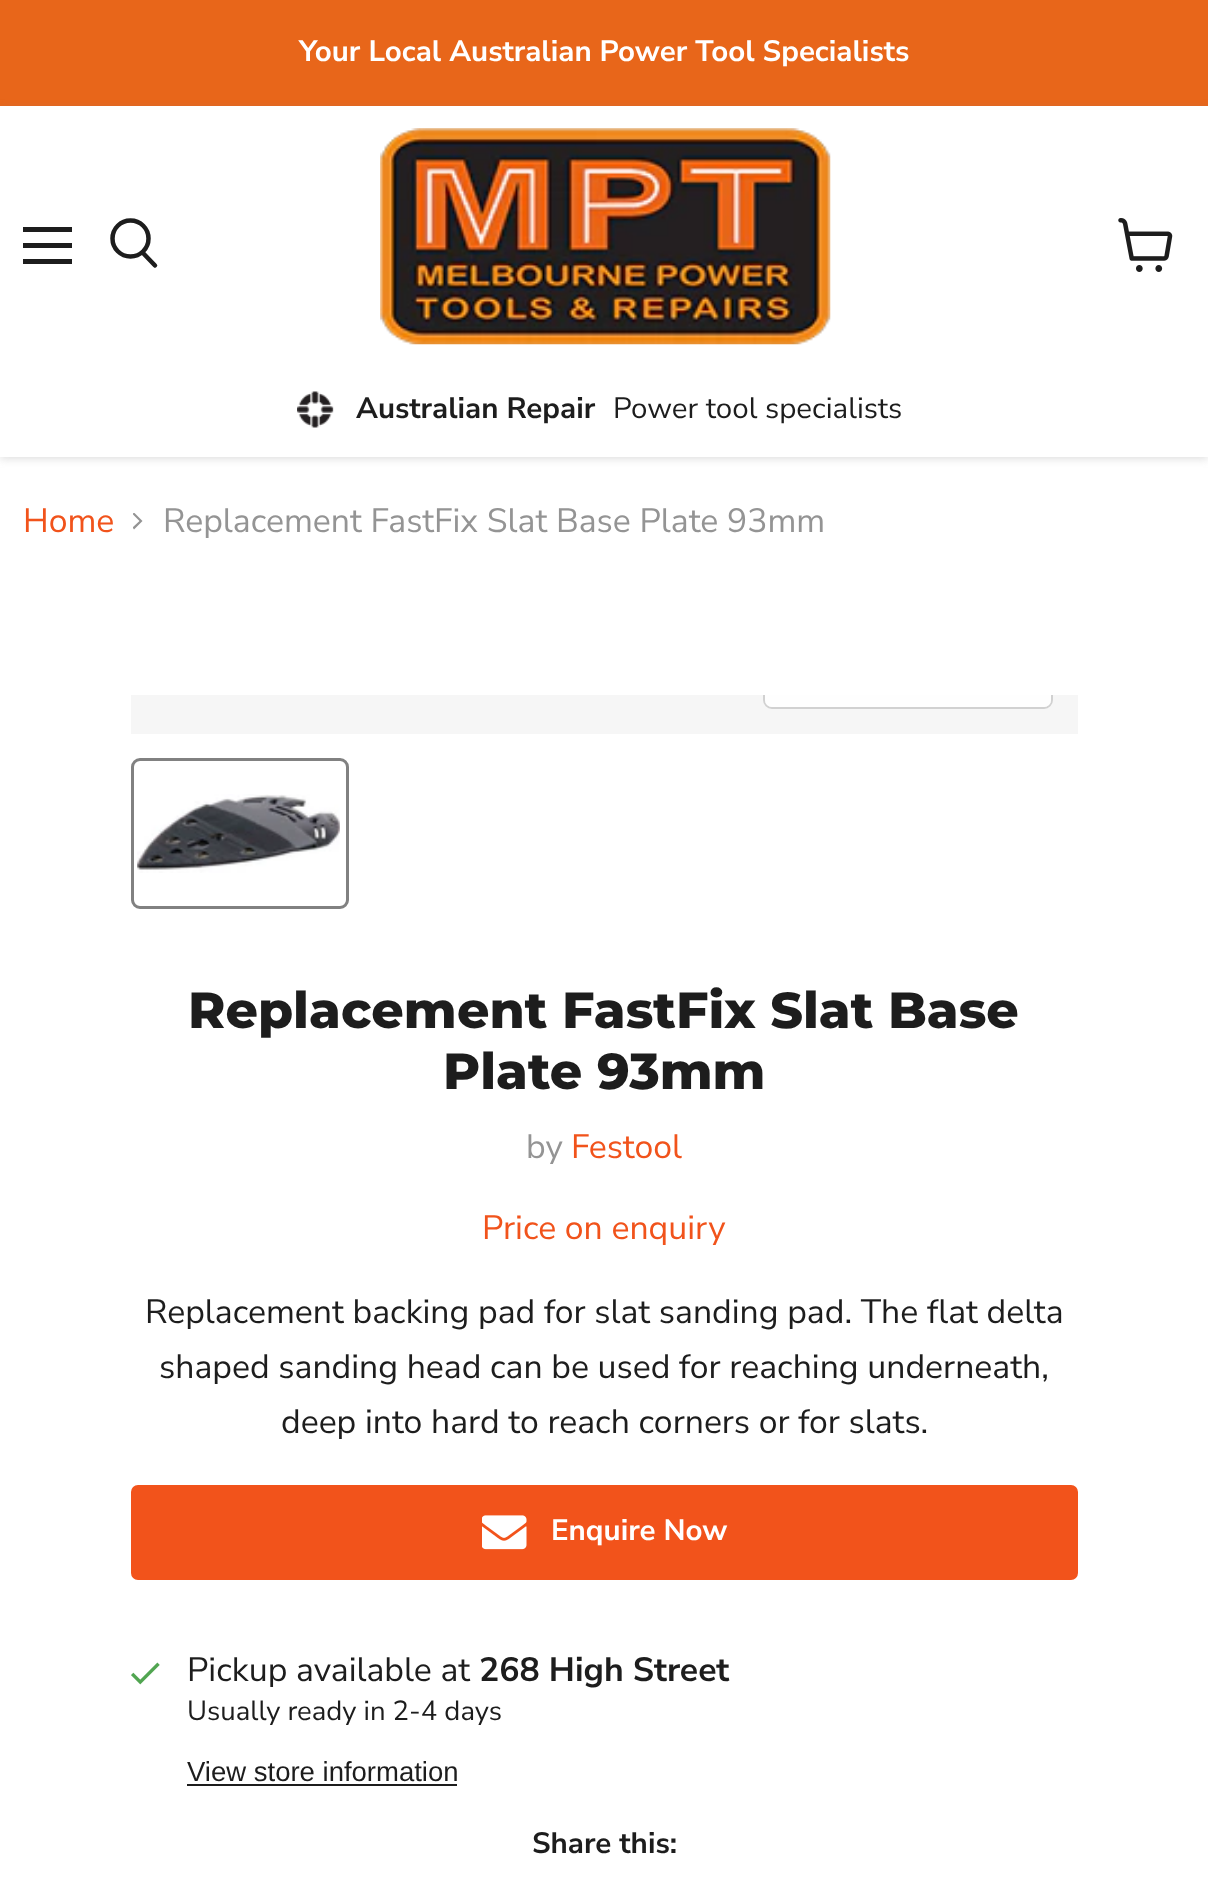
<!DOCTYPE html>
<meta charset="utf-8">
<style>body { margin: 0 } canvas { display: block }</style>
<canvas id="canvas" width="1208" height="1877"></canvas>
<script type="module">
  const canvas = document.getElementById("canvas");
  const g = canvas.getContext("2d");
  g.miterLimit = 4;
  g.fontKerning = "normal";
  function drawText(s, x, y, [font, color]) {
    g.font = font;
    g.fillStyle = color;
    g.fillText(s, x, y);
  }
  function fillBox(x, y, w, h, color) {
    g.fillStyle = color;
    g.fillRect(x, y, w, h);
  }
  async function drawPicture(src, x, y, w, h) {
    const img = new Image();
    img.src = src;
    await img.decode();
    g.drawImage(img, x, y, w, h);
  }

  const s1 = ["bold 29.5px Nunito Sans", "#FFFFFF"];
  const s2 = ["bold 29.5px Nunito Sans", "#1D1D1D"];
  const s3 = ["29.5px Nunito Sans", "#1D1D1D"];
  const s4 = ["33.75px Nunito Sans", "#F1531B"];
  const s5 = ["33.75px Nunito Sans", "#949494"];
  const s6 = ["800 50.6px Montserrat", "#1D1D1D"];
  const s7 = ["33.75px Nunito Sans", "#1D1D1D"];
  const s8 = ["bold 33.75px Nunito Sans", "#1D1D1D"];
  const s9 = ["27.5px Nunito Sans", "#1D1D1D"];
  const s10 = ["27.5px Liberation Sans", "#1D1D1D"];

  fillBox(0, 0, 1208, 1877, "#FFFFFF");
  fillBox(0, 0, 1208, 106, "#E8661A");
  drawText("Your Local Australian Power Tool Specialists", 299, 61, s1);
  g.fillStyle = "rgba(128, 128, 128, 0.25)";
  g.filter = "blur(4.5px)";
  g.beginPath();
  g.rect(0, 108, 1208, 351);
  g.fill();
  g.filter = "none";
  fillBox(0, 106, 1208, 351, "#FFFFFF");
  fillBox(23, 227, 49, 5, "#1D1D1D");
  fillBox(23, 243, 49, 5, "#1D1D1D");
  fillBox(23, 259, 49, 5, "#1D1D1D");
  g.beginPath();
  g.moveTo(155, 265.5);
  g.lineTo(143, 253);
  g.strokeStyle = "#1D1D1D";
  g.lineWidth = 4.5;
  g.lineCap = "round";
  g.stroke();
  g.beginPath();
  g.arc(130.5, 238.5, 18, 0, Math.PI * 2);
  g.stroke();
  await drawPicture("pic1.png", 1118, 218, 55, 54);
  await drawPicture("pic2.png", 380, 128, 451, 217);
  await drawPicture("pic3.png", 297, 391, 37, 37);
  drawText("Australian Repair", 356, 418, s2);
  drawText("Power tool specialists", 613, 418, s3);
  drawText("Home", 23, 532, s4);
  g.fillStyle = "#949494";
  g.beginPath();
  g.moveTo(133, 527);
  g.lineTo(133, 528);
  g.lineTo(134, 529.5);
  g.lineTo(142.5, 521);
  g.lineTo(134.5, 513);
  g.lineTo(133.5, 513);
  g.lineTo(133, 513.5);
  g.lineTo(133, 514.5);
  g.lineTo(139.5, 521);
  g.closePath();
  g.fill();
  drawText("Replacement FastFix Slat Base Plate 93mm", 163, 532, s5);
  fillBox(131, 695, 947, 39, "#F6F6F6");
  g.save();
  g.beginPath();
  g.rect(131, 695, 947, 39);
  g.clip();
  g.beginPath();
  g.roundRect(764, 645, 288, 63, 8);
  g.strokeStyle = "#D1D1D1";
  g.lineWidth = 2;
  g.stroke();
  g.restore();
  g.fillStyle = "rgba(255, 255, 255, 0.9)";
  g.beginPath();
  g.roundRect(765, 695, 286, 12, [0, 0, 7, 7]);
  g.fill();
  g.beginPath();
  g.roundRect(132.5, 759.5, 215, 148, 7.5);
  g.strokeStyle = "#818181";
  g.lineWidth = 3;
  g.stroke();
  await drawPicture("pic4.png", 137, 794, 203, 79);
  drawText("Replacement FastFix Slat Base", 188, 1028, s6);
  drawText("Plate 93mm", 443, 1089, s6);
  drawText("by", 526, 1158, s5);
  drawText("Festool", 571, 1158, s4);
  drawText("Price on enquiry", 482, 1239, s4);
  drawText("Replacement backing pad for slat sanding pad. The flat delta", 145, 1323, s7);
  drawText("shaped sanding head can be used for reaching underneath,", 159, 1378, s7);
  drawText("deep into hard to reach corners or for slats.", 281, 1433, s7);
  g.fillStyle = "#F2531B";
  g.beginPath();
  g.roundRect(132, 1486, 945, 93, 6);
  g.fill();
  g.strokeStyle = "#F2531B";
  g.lineWidth = 2;
  g.stroke();
  await drawPicture("pic5.png", 482, 1515, 45, 35);
  drawText("Enquire Now", 551, 1540, s1);
  await drawPicture("pic6.png", 131, 1662, 29, 23);
  drawText("Pickup available at", 187, 1681, s7);
  drawText("268 High Street", 479, 1681, s8);
  drawText("Usually ready in 2-4 days", 187, 1720, s9);
  drawText("View store information", 187, 1781, s10);
  fillBox(187, 1784, 270, 2, "#1D1D1D");
  drawText("Share this:", 532, 1853, s2);
</script>
